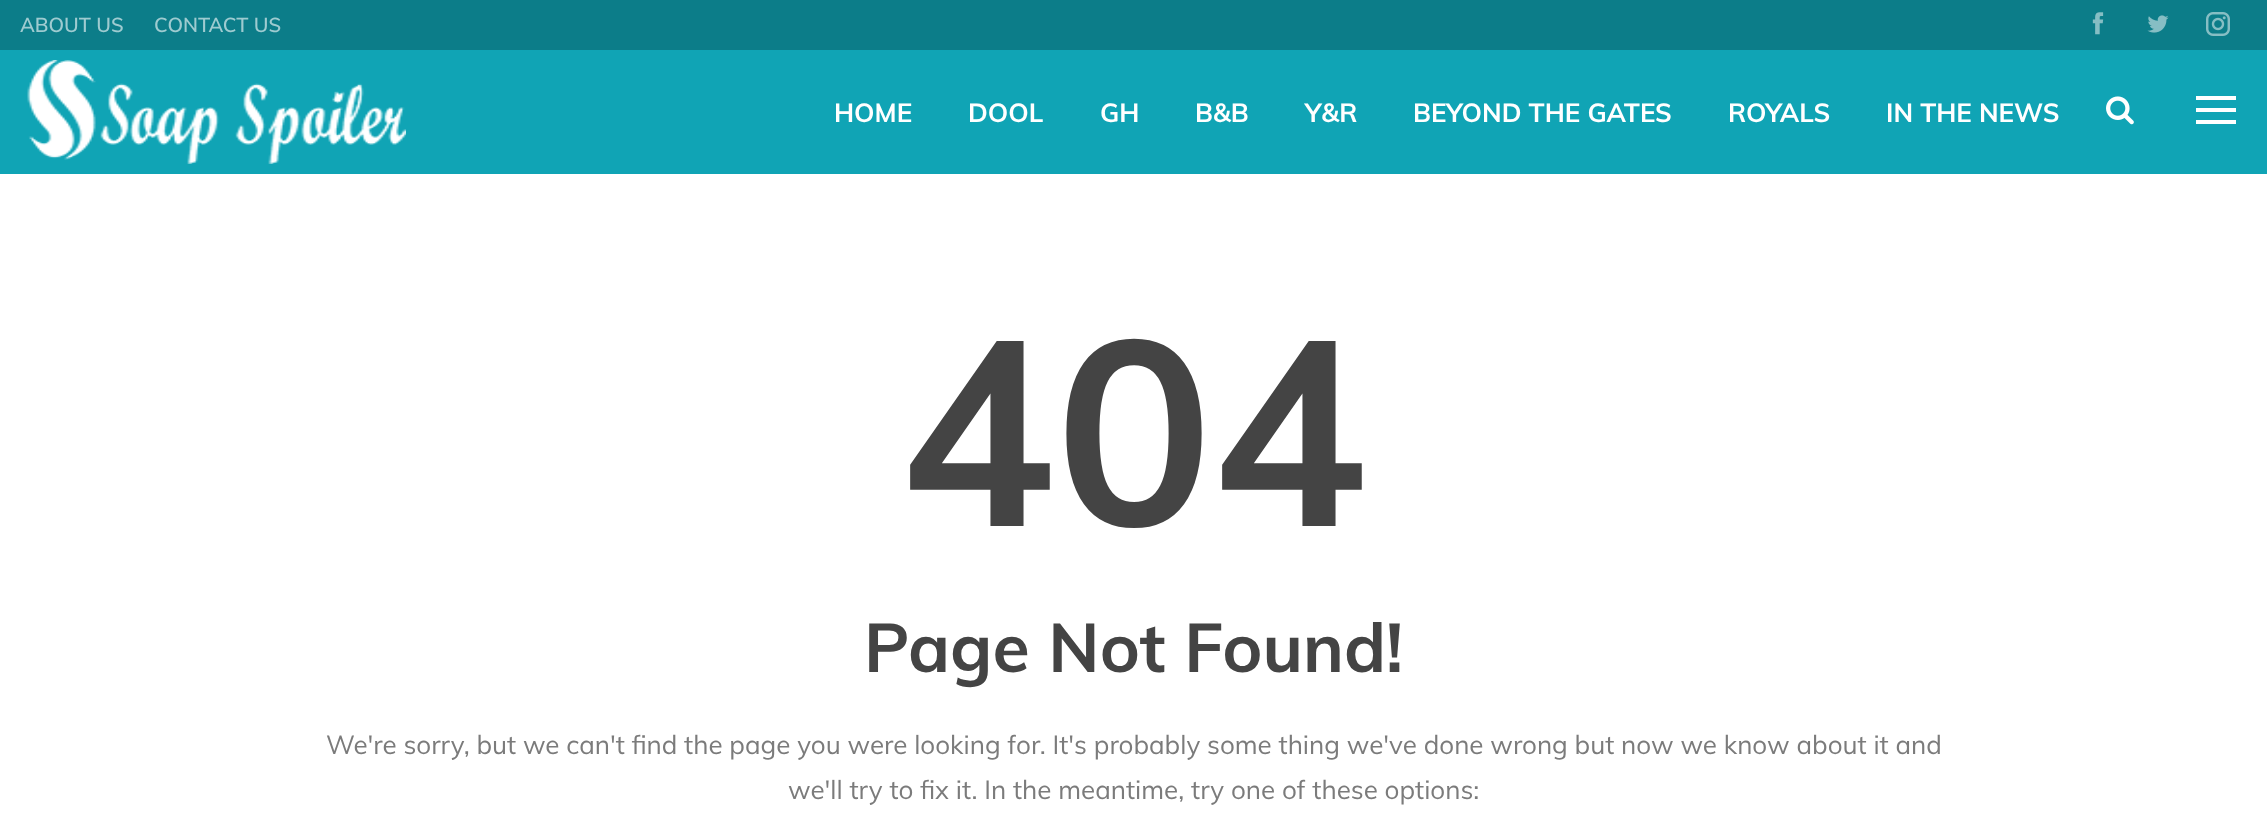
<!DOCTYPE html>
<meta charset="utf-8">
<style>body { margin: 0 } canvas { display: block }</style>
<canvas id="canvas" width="2267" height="827"></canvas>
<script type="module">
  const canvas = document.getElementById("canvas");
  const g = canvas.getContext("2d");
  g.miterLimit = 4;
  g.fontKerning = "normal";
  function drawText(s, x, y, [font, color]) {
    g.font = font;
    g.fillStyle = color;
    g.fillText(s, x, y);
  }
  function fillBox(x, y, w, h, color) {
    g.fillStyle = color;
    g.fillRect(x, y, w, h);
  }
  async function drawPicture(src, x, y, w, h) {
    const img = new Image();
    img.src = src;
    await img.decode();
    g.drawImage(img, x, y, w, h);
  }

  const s1 = ["600 20px Muli", "#9ECBD0"];
  const s2 = ["bold 26px Muli", "#FFFFFF"];
  const s3 = ["bold 260px Muli", "#444444"];
  const s4 = ["bold 68px Muli", "#444444"];
  const s5 = ["26px Muli", "#7B7B7B"];

  fillBox(0, 0, 2267, 827, "#FFFFFF");
  fillBox(0, 50, 2267, 124, "#10A4B5");
  fillBox(0, 0, 2267, 50, "#0C7D89");
  drawText("ABOUT US", 20, 32, s1);
  drawText("CONTACT US", 154, 32, s1);
  await drawPicture("pic1.png", 2092, 12, 12, 23);
  await drawPicture("pic2.png", 2147, 15, 22, 18);
  await drawPicture("pic3.png", 2206, 12, 24, 24);
  await drawPicture("pic4.png", 27, 60, 379, 104);
  drawText("HOME", 834, 122, s2);
  drawText("DOOL", 968, 122, s2);
  drawText("GH", 1100, 122, s2);
  drawText("B&B", 1195, 122, s2);
  drawText("Y&R", 1305, 122, s2);
  drawText("BEYOND THE GATES", 1413, 122, s2);
  drawText("ROYALS", 1728, 122, s2);
  drawText("IN THE NEWS", 1886, 122, s2);
  await drawPicture("pic5.png", 2106, 96, 28, 29);
  fillBox(2196, 108, 40, 4, "#FFFFFF");
  fillBox(2196, 96, 40, 4, "#FFFFFF");
  fillBox(2196, 120, 40, 4, "#FFFFFF");
  drawText("404", 900, 526, s3);
  drawText("Page Not Found!", 864, 672, s4);
  drawText("We're sorry, but we can't find the page you were looking for. It's probably some thing we've done wrong but now we know about it and", 326, 754, s5);
  drawText("we'll try to fix it. In the meantime, try one of these options:", 788, 799, s5);
</script>
